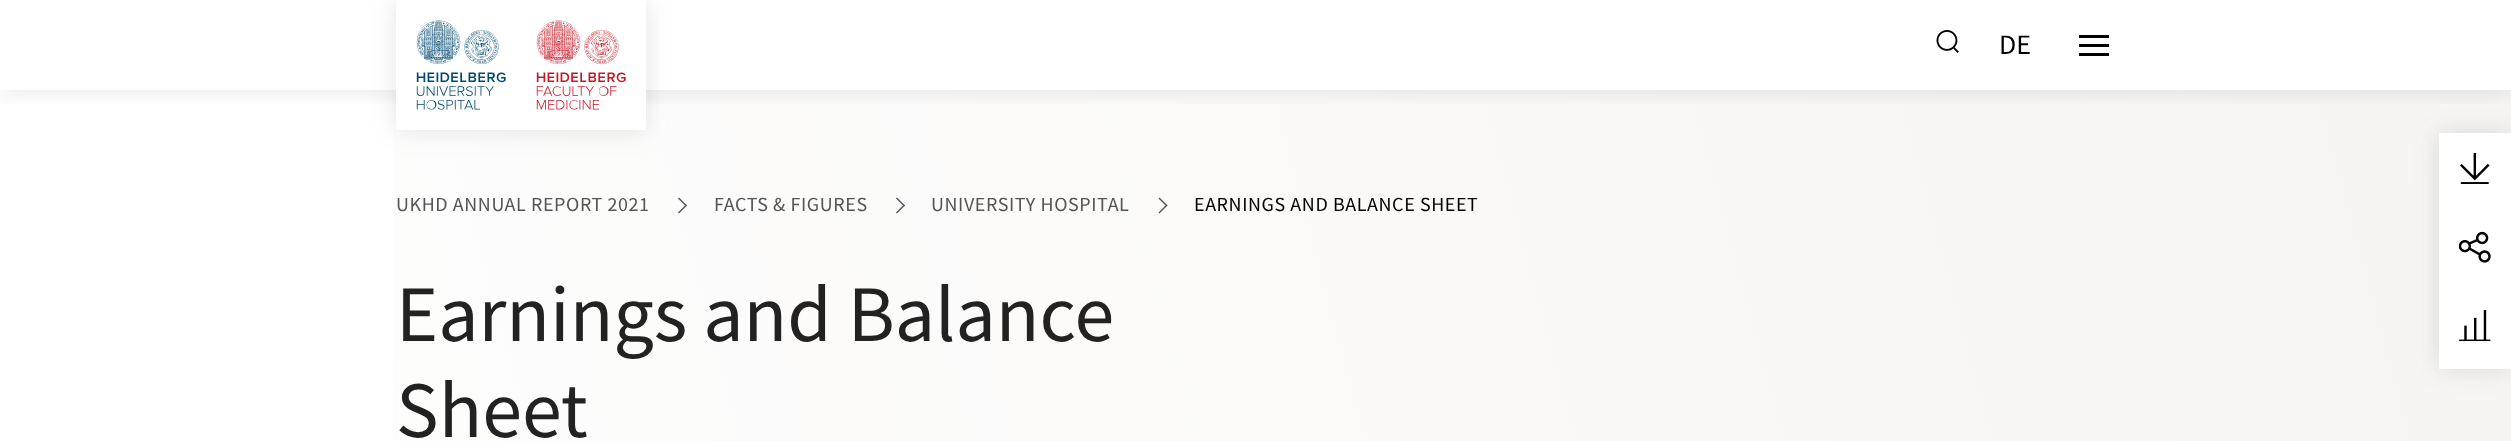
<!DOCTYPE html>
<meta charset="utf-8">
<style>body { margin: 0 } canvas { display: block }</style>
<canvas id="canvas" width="2511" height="441"></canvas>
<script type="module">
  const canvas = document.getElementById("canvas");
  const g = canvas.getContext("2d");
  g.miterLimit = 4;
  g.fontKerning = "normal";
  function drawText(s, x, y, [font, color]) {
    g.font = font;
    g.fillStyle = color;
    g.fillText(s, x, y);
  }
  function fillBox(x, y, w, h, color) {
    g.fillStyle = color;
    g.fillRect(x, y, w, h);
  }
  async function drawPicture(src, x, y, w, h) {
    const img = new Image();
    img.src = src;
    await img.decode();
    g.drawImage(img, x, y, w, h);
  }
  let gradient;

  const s1 = ["28px Source Sans Pro", "#000000"];
  const s2 = ["20px Source Sans Pro", "#535455"];
  const s3 = ["20px Source Sans Pro", "#000000"];
  const s4 = ["80px Source Sans Pro", "#222222"];

  fillBox(0, 0, 2511, 441, "#FFFFFF");
  gradient = g.createLinearGradient(32, 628, 2480, -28);
  gradient.addColorStop(0, "#FFFFFF");
  gradient.addColorStop(1, "#F6F4F2");
  g.fillStyle = gradient;
  g.fillRect(393, 90, 2118, 351);
  g.save();
  g.beginPath();
  g.rect(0, 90, 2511, 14);
  g.clip();
  g.fillStyle = "rgba(83, 84, 85, 0.16)";
  g.filter = "blur(12.5px)";
  g.beginPath();
  g.rect(0, 0, 2511, 90);
  g.fill();
  g.filter = "none";
  g.restore();
  g.fillStyle = "rgba(83, 84, 85, 0.16)";
  g.filter = "blur(12.5px)";
  g.beginPath();
  g.rect(396, 0, 250, 130);
  g.fill();
  g.filter = "none";
  fillBox(396, 0, 250, 130, "#FFFFFF");
  await drawPicture("pic1.png", 416, 20, 210, 90);
  await drawPicture("pic2.png", 1936, 30, 23, 23);
  drawText("DE", 1999, 54, s1);
  fillBox(2079, 35, 30, 3, "#000000");
  fillBox(2079, 44, 30, 3, "#000000");
  fillBox(2079, 53, 30, 3, "#000000");
  g.letterSpacing = "0.6px";
  drawText("UKHD ANNUAL REPORT 2021", 396, 211, s2);
  g.beginPath();
  g.moveTo(678, 198.5);
  g.lineTo(679, 197.5);
  g.lineTo(687, 205.5);
  g.lineTo(686, 206.5);
  g.closePath();
  g.fill();
  g.beginPath();
  g.moveTo(678, 212.5);
  g.lineTo(686, 204.5);
  g.lineTo(687, 205.5);
  g.lineTo(679, 213.5);
  g.closePath();
  g.fill();
  drawText("FACTS & FIGURES", 714, 211, s2);
  g.beginPath();
  g.moveTo(896, 198.5);
  g.lineTo(897, 197.5);
  g.lineTo(905, 205.5);
  g.lineTo(904, 206.5);
  g.closePath();
  g.fill();
  g.beginPath();
  g.moveTo(896, 212.5);
  g.lineTo(904, 204.5);
  g.lineTo(905, 205.5);
  g.lineTo(897, 213.5);
  g.closePath();
  g.fill();
  drawText("UNIVERSITY HOSPITAL", 931, 211, s2);
  g.beginPath();
  g.moveTo(1158.5, 198.5);
  g.lineTo(1159.5, 197.5);
  g.lineTo(1167.5, 205.5);
  g.lineTo(1166.5, 206.5);
  g.closePath();
  g.fill();
  g.beginPath();
  g.moveTo(1158.5, 212.5);
  g.lineTo(1166.5, 204.5);
  g.lineTo(1167.5, 205.5);
  g.lineTo(1159.5, 213.5);
  g.closePath();
  g.fill();
  drawText("EARNINGS AND BALANCE SHEET", 1194, 211, s3);
  g.letterSpacing = "0px";
  drawText("Earnings and Balance", 396, 341, s4);
  drawText("Sheet", 396, 437, s4);
  g.fillStyle = "rgba(83, 84, 85, 0.16)";
  g.filter = "blur(12.5px)";
  g.beginPath();
  g.rect(2439, 133, 72, 236);
  g.fill();
  g.filter = "none";
  fillBox(2439, 133, 72, 236, "#FFFFFF");
  await drawPicture("pic3.png", 2460, 153, 30, 31);
  await drawPicture("pic4.png", 2459, 231, 32, 32);
  await drawPicture("pic5.png", 2459, 310, 32, 31);
</script>
